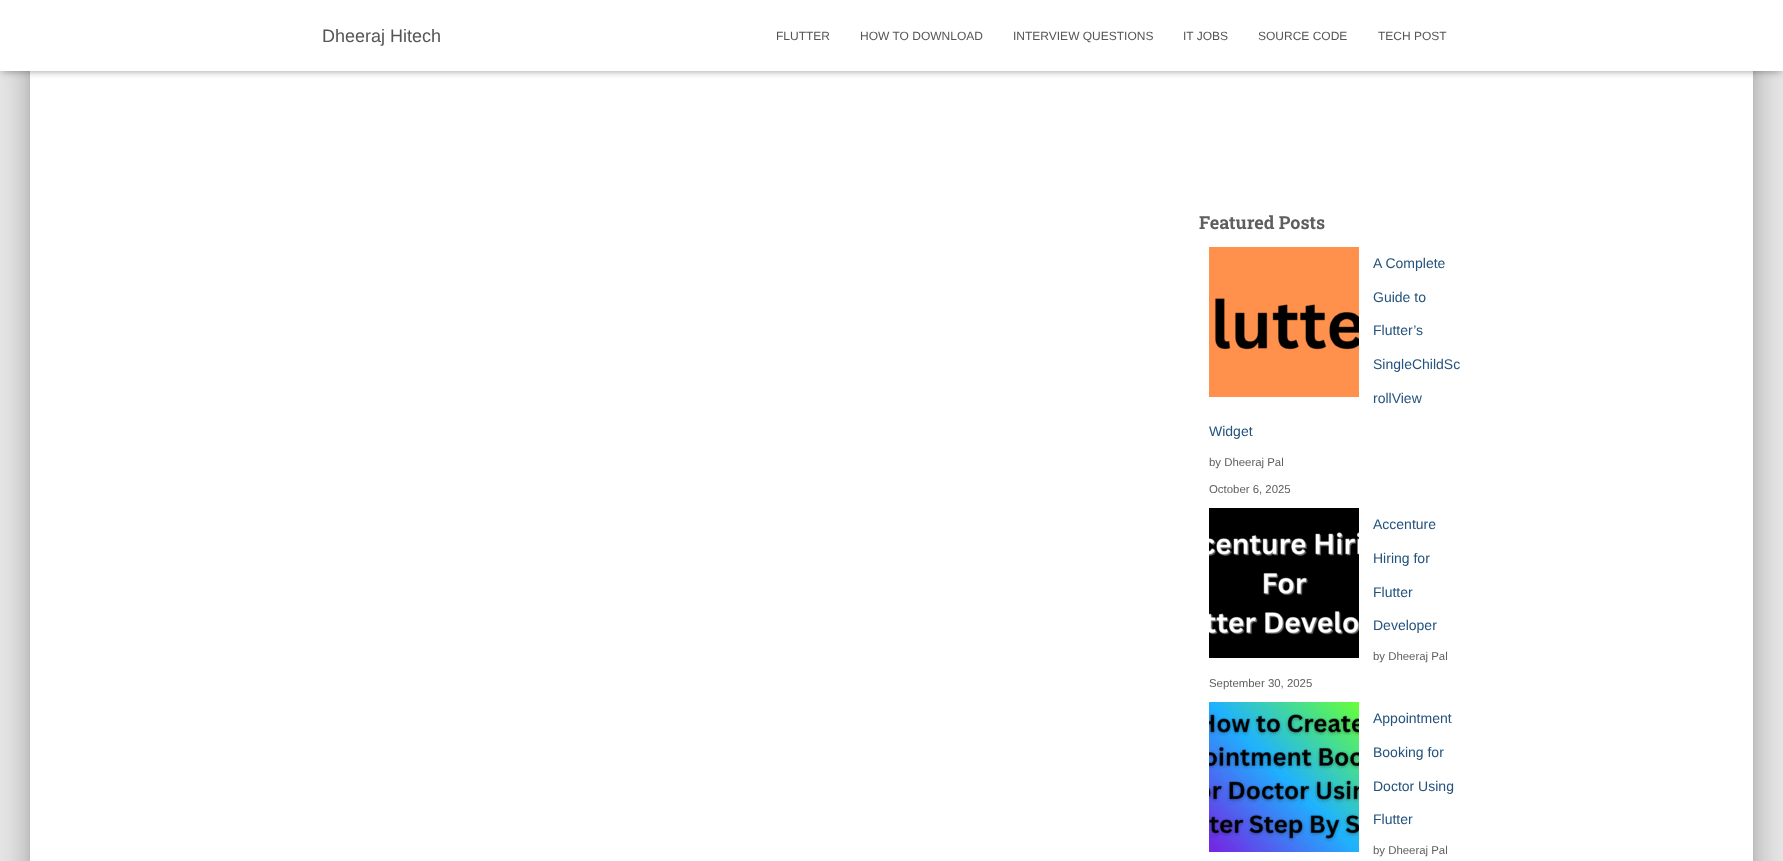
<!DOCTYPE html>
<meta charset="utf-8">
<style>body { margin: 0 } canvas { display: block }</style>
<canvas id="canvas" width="1783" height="861"></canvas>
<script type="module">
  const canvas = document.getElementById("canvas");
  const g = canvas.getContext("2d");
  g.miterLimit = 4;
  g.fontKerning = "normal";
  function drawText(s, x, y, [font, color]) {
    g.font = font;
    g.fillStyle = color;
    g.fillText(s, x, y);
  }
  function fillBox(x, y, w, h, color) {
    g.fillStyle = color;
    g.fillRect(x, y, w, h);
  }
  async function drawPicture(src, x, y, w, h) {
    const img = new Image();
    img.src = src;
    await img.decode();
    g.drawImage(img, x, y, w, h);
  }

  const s1 = ["18px Liberation Sans", "#555555"];
  const s2 = ["12px Liberation Sans", "#555555"];
  const s3 = ["bold 18px Roboto Slab", "#5E5E5E"];
  const s4 = ["14px Liberation Sans", "#23527C"];
  const s5 = ["11.4px Liberation Sans", "#5E5E5E"];

  fillBox(0, 0, 1783, 861, "#E5E5E5");
  g.fillStyle = "rgba(0, 0, 0, 0.2)";
  g.filter = "blur(5px)";
  g.beginPath();
  g.roundRect(35, -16, 1713, 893, 1);
  g.fill();
  g.filter = "none";
  g.fillStyle = "rgba(0, 0, 0, 0.12)";
  g.filter = "blur(15px)";
  g.beginPath();
  g.roundRect(25, -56, 1733, 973, 11);
  g.fill();
  g.filter = "none";
  g.fillStyle = "rgba(0, 0, 0, 0.14)";
  g.filter = "blur(12px)";
  g.beginPath();
  g.roundRect(28, -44, 1727, 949, 8);
  g.fill();
  g.filter = "none";
  fillBox(30, 71, 1723, 790, "#FFFFFF");
  g.fillStyle = "rgba(0, 0, 0, 0.1)";
  g.filter = "blur(2.5px)";
  g.beginPath();
  g.rect(2, 6, 1779, 67);
  g.fill();
  g.filter = "none";
  g.fillStyle = "rgba(0, 0, 0, 0.12)";
  g.filter = "blur(5px)";
  g.beginPath();
  g.rect(0, 1, 1783, 71);
  g.fill();
  g.filter = "none";
  g.fillStyle = "rgba(0, 0, 0, 0.42)";
  g.filter = "blur(5px)";
  g.beginPath();
  g.rect(6, 7, 1771, 59);
  g.fill();
  g.filter = "none";
  fillBox(0, 0, 1783, 71, "#FFFFFF");
  drawText("Dheeraj Hitech", 322, 42, s1);
  drawText("FLUTTER", 776, 40, s2);
  drawText("HOW TO DOWNLOAD", 860, 40, s2);
  drawText("INTERVIEW QUESTIONS", 1013, 40, s2);
  drawText("IT JOBS", 1183, 40, s2);
  drawText("SOURCE CODE", 1258, 40, s2);
  drawText("TECH POST", 1378, 40, s2);
  drawText("Featured Posts", 1199, 229, s3);
  await drawPicture("pic1.png", 1209, 247, 150, 150);
  drawText("A Complete", 1373, 268, s4);
  drawText("Guide to", 1373, 302, s4);
  drawText("Flutter’s", 1373, 335, s4);
  drawText("SingleChildSc", 1373, 369, s4);
  drawText("rollView", 1373, 403, s4);
  drawText("Widget", 1209, 436, s4);
  drawText("by Dheeraj Pal", 1209, 466, s5);
  drawText("October 6, 2025", 1209, 493, s5);
  await drawPicture("pic2.png", 1209, 508, 150, 150);
  drawText("Accenture", 1373, 529, s4);
  drawText("Hiring for", 1373, 563, s4);
  drawText("Flutter", 1373, 597, s4);
  drawText("Developer", 1373, 630, s4);
  drawText("by Dheeraj Pal", 1373, 660, s5);
  drawText("September 30, 2025", 1209, 687, s5);
  await drawPicture("pic3.png", 1209, 702, 150, 150);
  drawText("Appointment", 1373, 723, s4);
  drawText("Booking for", 1373, 757, s4);
  drawText("Doctor Using", 1373, 791, s4);
  drawText("Flutter", 1373, 824, s4);
  drawText("by Dheeraj Pal", 1373, 854, s5);
</script>
